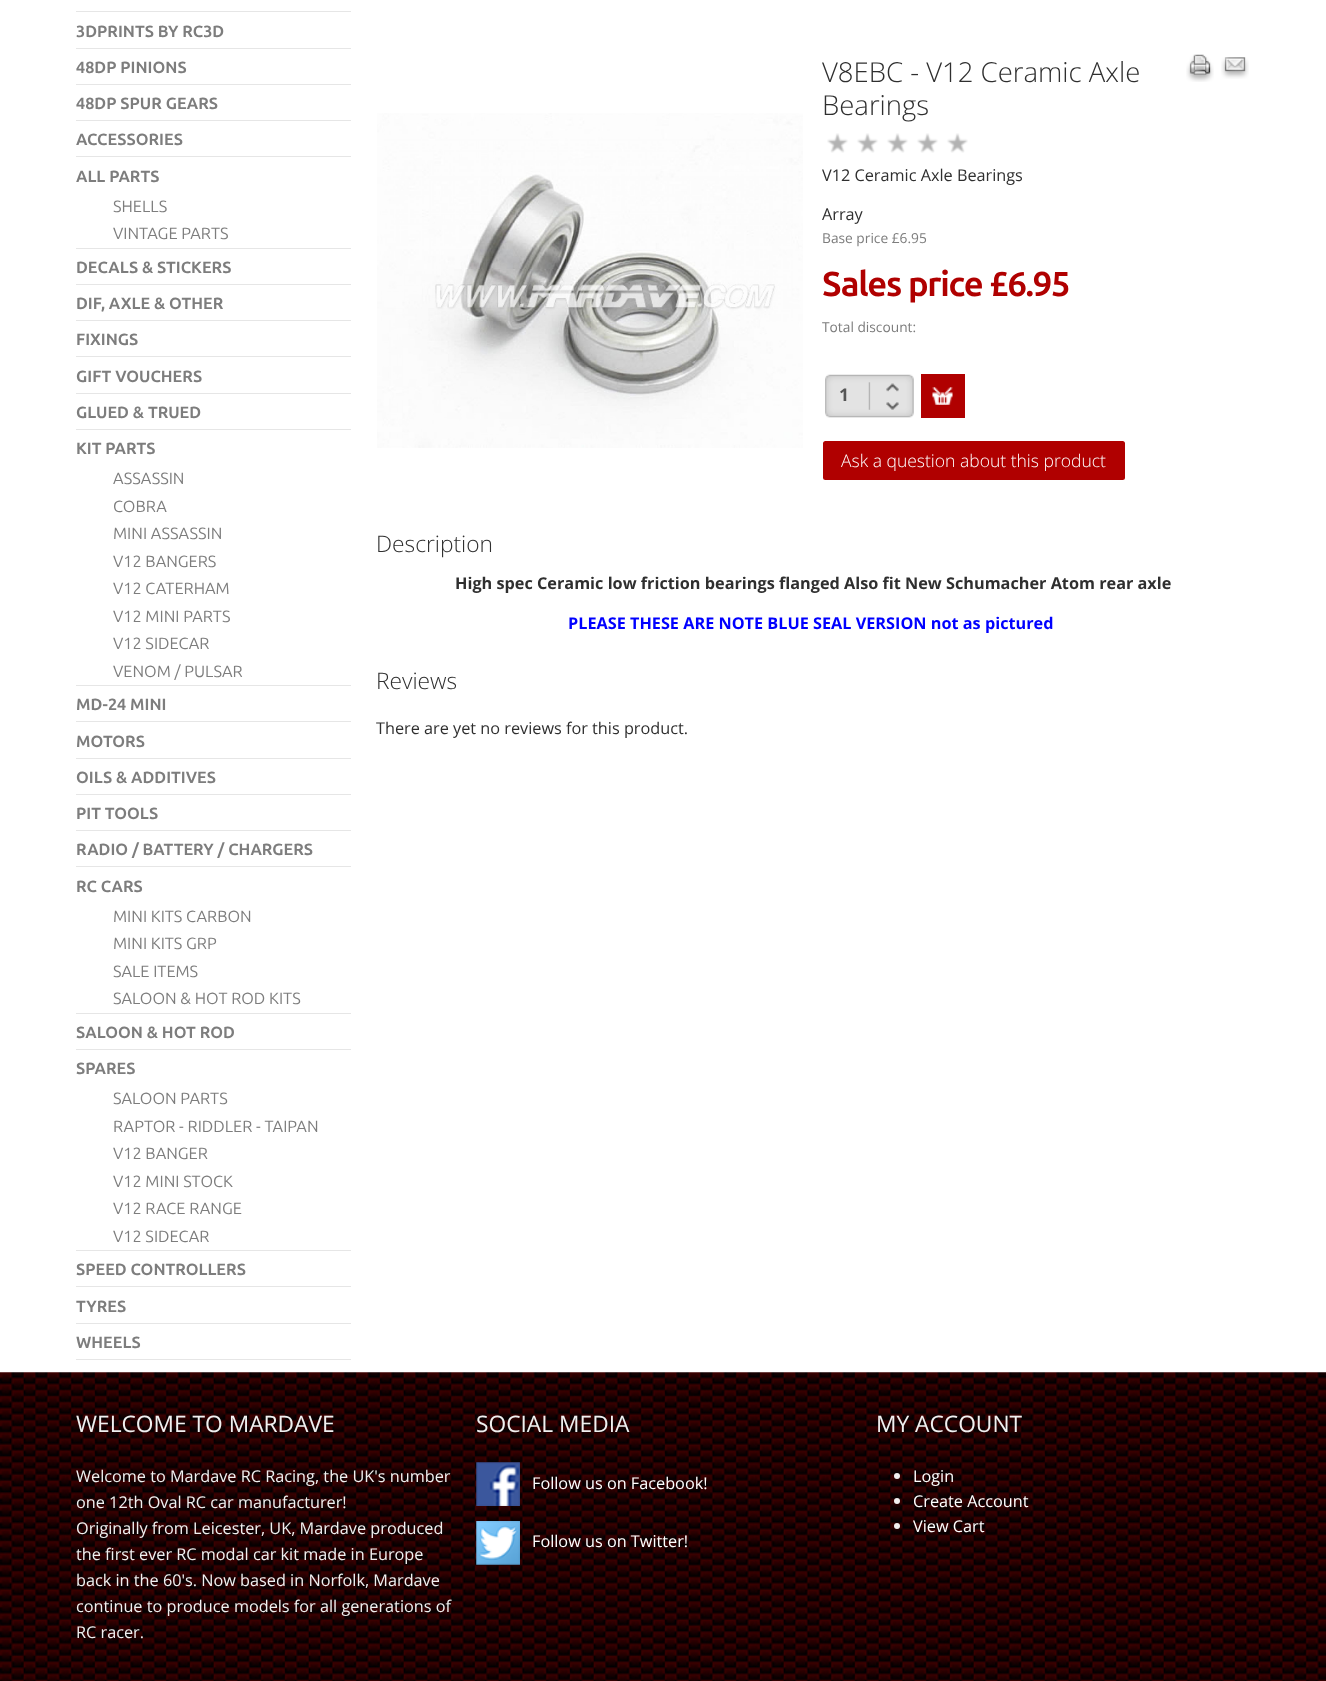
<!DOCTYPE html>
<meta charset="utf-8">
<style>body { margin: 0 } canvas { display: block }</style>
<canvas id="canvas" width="1326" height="1681"></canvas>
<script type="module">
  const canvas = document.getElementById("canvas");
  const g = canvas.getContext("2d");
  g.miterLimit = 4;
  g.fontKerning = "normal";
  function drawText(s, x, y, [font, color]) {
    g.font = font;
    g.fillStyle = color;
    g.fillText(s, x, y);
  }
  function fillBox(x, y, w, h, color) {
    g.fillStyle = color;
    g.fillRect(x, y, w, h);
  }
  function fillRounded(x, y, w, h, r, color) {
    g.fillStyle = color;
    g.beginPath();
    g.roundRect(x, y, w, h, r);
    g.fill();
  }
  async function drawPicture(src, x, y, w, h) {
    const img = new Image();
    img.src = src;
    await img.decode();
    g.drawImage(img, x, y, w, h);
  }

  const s1 = ["bold 16.25px Ubuntu", "#7D7D7D"];
  const s2 = ["16.25px Ubuntu", "#7D7D7D"];
  const s3 = ["300 27.5px Open Sans", "#2F2F2F"];
  const s4 = ["16.25px Open Sans", "#2F2F2F"];
  const s5 = ["13.75px Open Sans", "#7D7D7D"];
  const s6 = ["bold 34.5px Ubuntu", "#B00000"];
  const s7 = ["bold 17.5px Open Sans", "#555555"];
  const s8 = ["300 17.5px Open Sans", "#FFFFFF"];
  const s9 = ["300 22.75px Open Sans", "#2F2F2F"];
  const s10 = ["bold 16.25px Open Sans", "#2F2F2F"];
  const s11 = ["bold 16.25px Open Sans", "#0000FF"];
  const s12 = ["22.75px Open Sans", "#F0F0F0"];
  const s13 = ["16.25px Open Sans", "#F0F0F0"];
  const s14 = ["16.25px Open Sans", "#FFFFFF"];

  fillBox(0, 0, 1326, 1681, "#FFFFFF");
  fillBox(76, 11, 275, 1, "#E6E6E6");
  fillBox(76, 48, 275, 1, "#E6E6E6");
  drawText("3DPRINTS BY RC3D", 76, 37, s1);
  fillBox(76, 84, 275, 1, "#E6E6E6");
  drawText("48DP PINIONS", 76, 73, s1);
  fillBox(76, 120, 275, 1, "#E6E6E6");
  drawText("48DP SPUR GEARS", 76, 109, s1);
  fillBox(76, 156, 275, 1, "#E6E6E6");
  drawText("ACCESSORIES", 76, 145, s1);
  fillBox(76, 248, 275, 1, "#E6E6E6");
  drawText("ALL PARTS", 76, 182, s1);
  drawText("SHELLS", 113, 212, s2);
  drawText("VINTAGE PARTS", 113, 239, s2);
  fillBox(76, 284, 275, 1, "#E6E6E6");
  drawText("DECALS & STICKERS", 76, 273, s1);
  fillBox(76, 320, 275, 1, "#E6E6E6");
  drawText("DIF, AXLE & OTHER", 76, 309, s1);
  fillBox(76, 356, 275, 1, "#E6E6E6");
  drawText("FIXINGS", 76, 345, s1);
  fillBox(76, 393, 275, 1, "#E6E6E6");
  drawText("GIFT VOUCHERS", 76, 382, s1);
  fillBox(76, 429, 275, 1, "#E6E6E6");
  drawText("GLUED & TRUED", 76, 418, s1);
  fillBox(76, 685, 275, 1, "#E6E6E6");
  drawText("KIT PARTS", 76, 454, s1);
  drawText("ASSASSIN", 113, 484, s2);
  drawText("COBRA", 113, 512, s2);
  drawText("MINI ASSASSIN", 113, 539, s2);
  drawText("V12 BANGERS", 113, 567, s2);
  drawText("V12 CATERHAM", 113, 594, s2);
  drawText("V12 MINI PARTS", 113, 622, s2);
  drawText("V12 SIDECAR", 113, 649, s2);
  drawText("VENOM / PULSAR", 113, 677, s2);
  fillBox(76, 721, 275, 1, "#E6E6E6");
  drawText("MD-24 MINI", 76, 710, s1);
  fillBox(76, 758, 275, 1, "#E6E6E6");
  drawText("MOTORS", 76, 747, s1);
  fillBox(76, 794, 275, 1, "#E6E6E6");
  drawText("OILS & ADDITIVES", 76, 783, s1);
  fillBox(76, 830, 275, 1, "#E6E6E6");
  drawText("PIT TOOLS", 76, 819, s1);
  fillBox(76, 866, 275, 1, "#E6E6E6");
  drawText("RADIO / BATTERY / CHARGERS", 76, 855, s1);
  fillBox(76, 1013, 275, 1, "#E6E6E6");
  drawText("RC CARS", 76, 892, s1);
  drawText("MINI KITS CARBON", 113, 922, s2);
  drawText("MINI KITS GRP", 113, 949, s2);
  drawText("SALE ITEMS", 113, 977, s2);
  drawText("SALOON & HOT ROD KITS", 113, 1004, s2);
  fillBox(76, 1049, 275, 1, "#E6E6E6");
  drawText("SALOON & HOT ROD", 76, 1038, s1);
  fillBox(76, 1250, 275, 1, "#E6E6E6");
  drawText("SPARES", 76, 1074, s1);
  drawText("SALOON PARTS", 113, 1104, s2);
  drawText("RAPTOR - RIDDLER - TAIPAN", 113, 1132, s2);
  drawText("V12 BANGER", 113, 1159, s2);
  drawText("V12 MINI STOCK", 113, 1187, s2);
  drawText("V12 RACE RANGE", 113, 1214, s2);
  drawText("V12 SIDECAR", 113, 1242, s2);
  fillBox(76, 1286, 275, 1, "#E6E6E6");
  drawText("SPEED CONTROLLERS", 76, 1275, s1);
  fillBox(76, 1323, 275, 1, "#E6E6E6");
  drawText("TYRES", 76, 1312, s1);
  fillBox(76, 1359, 275, 1, "#E6E6E6");
  drawText("WHEELS", 76, 1348, s1);
  await drawPicture("pic1.png", 377, 113, 426, 335);
  drawText("V8EBC - V12 Ceramic Axle", 822, 82, s3);
  drawText("Bearings", 822, 115, s3);
  await drawPicture("pic2.png", 1186, 54, 28, 28);
  await drawPicture("pic3.png", 1221, 57, 28, 22);
  await drawPicture("pic4.png", 827, 133, 141, 20);
  drawText("V12 Ceramic Axle Bearings", 822, 181, s4);
  drawText("Array", 822, 220, s4);
  drawText("Base price £6.95", 822, 243, s5);
  g.letterSpacing = "-1.25px";
  drawText("Sales price £6.95", 822, 296, s6);
  g.letterSpacing = "0px";
  drawText("Total discount:", 822, 332, s5);
  await drawPicture("pic5.png", 825, 374, 89, 44);
  drawText("1", 839, 401, s7);
  await drawPicture("pic6.png", 886, 383, 13, 9);
  await drawPicture("pic7.png", 886, 402, 13, 8);
  fillBox(921, 374, 44, 44, "#B00000");
  await drawPicture("pic8.png", 932, 387, 21, 18);
  fillRounded(823, 441, 302, 39, 2.5, "#B00000");
  drawText("Ask a question about this product", 841, 467, s8);
  drawText("Description", 376, 552, s9);
  drawText("High spec Ceramic low friction bearings flanged Also fit New Schumacher Atom rear axle", 455, 589, s10);
  drawText("PLEASE THESE ARE NOTE BLUE SEAL VERSION not as pictured", 568, 629, s11);
  drawText("Reviews", 376, 689, s9);
  drawText("There are yet no reviews for this product.", 376, 734, s4);
  await drawPicture("pic9.png", 0, 1372, 1326, 309);
  drawText("WELCOME TO MARDAVE", 76, 1432, s12);
  drawText("Welcome to Mardave RC Racing, the UK's number", 76, 1482, s13);
  drawText("one 12th Oval RC car manufacturer!", 76, 1508, s13);
  drawText("Originally from Leicester, UK, Mardave produced", 76, 1534, s13);
  drawText("the first ever RC modal car kit made in Europe", 76, 1560, s13);
  drawText("back in the 60's. Now based in Norfolk, Mardave", 76, 1586, s13);
  drawText("continue to produce models for all generations of", 76, 1612, s13);
  drawText("RC racer.", 76, 1638, s13);
  drawText("SOCIAL MEDIA", 476, 1432, s12);
  await drawPicture("pic10.png", 476, 1462, 44, 44);
  drawText("Follow us on Facebook!", 532, 1489, s14);
  await drawPicture("pic11.png", 476, 1521, 44, 44);
  drawText("Follow us on Twitter!", 532, 1547, s14);
  drawText("MY ACCOUNT", 876, 1432, s12);
  g.beginPath();
  g.arc(897, 1476, 3, 0, Math.PI * 2);
  g.fill();
  drawText("Login", 913, 1482, s14);
  g.fillStyle = "#F0F0F0";
  g.beginPath();
  g.arc(897, 1501, 3, 0, Math.PI * 2);
  g.fill();
  drawText("Create Account", 913, 1507, s14);
  g.fillStyle = "#F0F0F0";
  g.beginPath();
  g.arc(897, 1526, 3, 0, Math.PI * 2);
  g.fill();
  drawText("View Cart", 913, 1532, s14);
</script>
